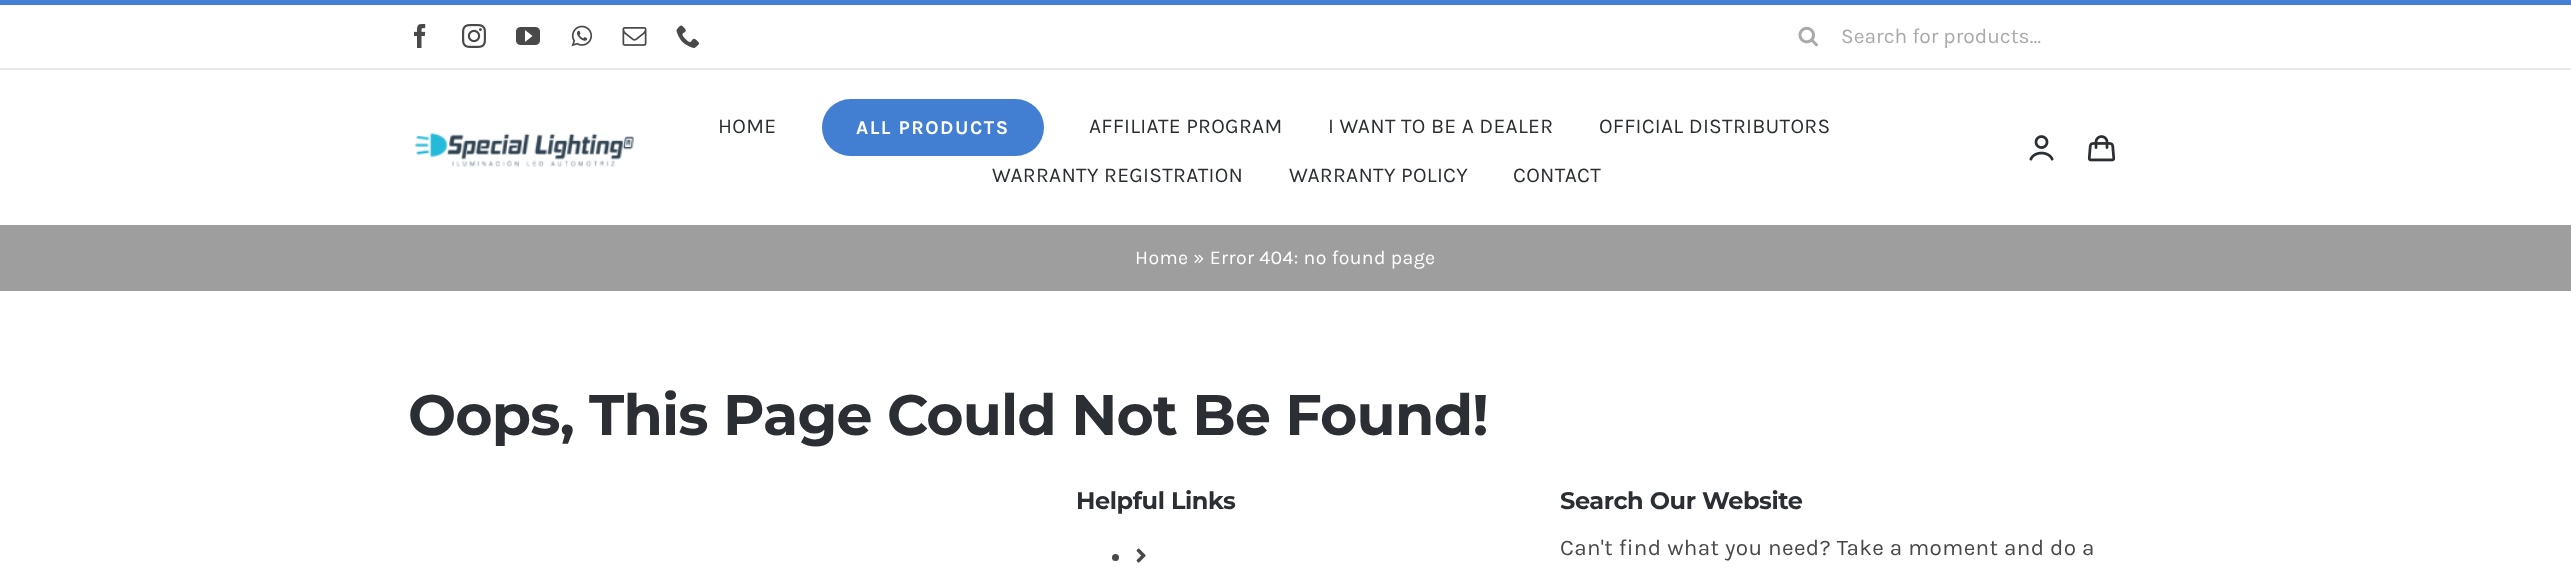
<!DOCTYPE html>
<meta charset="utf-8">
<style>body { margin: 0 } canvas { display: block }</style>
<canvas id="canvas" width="2571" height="573"></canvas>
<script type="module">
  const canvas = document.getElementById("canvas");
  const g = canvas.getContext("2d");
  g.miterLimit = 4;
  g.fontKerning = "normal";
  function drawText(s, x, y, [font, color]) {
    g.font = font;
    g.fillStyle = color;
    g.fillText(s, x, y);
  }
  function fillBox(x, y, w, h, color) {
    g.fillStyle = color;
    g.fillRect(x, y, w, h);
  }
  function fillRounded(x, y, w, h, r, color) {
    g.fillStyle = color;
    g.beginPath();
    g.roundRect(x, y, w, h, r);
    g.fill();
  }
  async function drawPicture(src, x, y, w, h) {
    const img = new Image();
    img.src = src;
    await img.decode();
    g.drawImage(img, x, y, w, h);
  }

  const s1 = ["21px Karla", "#AAAAAA"];
  const s2 = ["21px Karla", "#2B2E32"];
  const s3 = ["bold 19.5px Karla", "#FFFFFF"];
  const s4 = ["19.5px Karla", "#FFFFFF"];
  const s5 = ["100 57px Montserrat", "#2B2E32"];
  const s6 = ["100 24px Montserrat", "#2B2E32"];
  const s7 = ["22.5px Karla", "#494949"];

  fillBox(0, 0, 2571, 573, "#FFFFFF");
  fillBox(0, 0, 2571, 5, "#427ED1");
  await drawPicture("pic1.png", 414, 24, 12, 24);
  await drawPicture("pic2.png", 462, 24, 24, 24);
  await drawPicture("pic3.png", 516, 27, 24, 18);
  await drawPicture("pic4.png", 571, 25, 22, 22);
  await drawPicture("pic5.png", 622, 27, 25, 19);
  await drawPicture("pic6.png", 676, 25, 23, 23);
  await drawPicture("pic7.png", 1798, 26, 20, 21);
  drawText("Search for products...", 1841, 43, s1);
  fillBox(0, 68, 2571, 2, "#EAEAEA");
  await drawPicture("pic8.png", 414, 132, 220, 35);
  g.letterSpacing = "0.3px";
  drawText("HOME", 718, 133, s2);
  fillRounded(822, 99, 222, 57, 28.5, "#427ED1");
  g.letterSpacing = "1.5px";
  drawText("ALL PRODUCTS", 856, 134, s3);
  g.letterSpacing = "0.3px";
  drawText("AFFILIATE PROGRAM", 1089, 133, s2);
  drawText("I WANT TO BE A DEALER", 1328, 133, s2);
  drawText("OFFICIAL DISTRIBUTORS", 1599, 133, s2);
  drawText("WARRANTY REGISTRATION", 992, 182, s2);
  drawText("WARRANTY POLICY", 1289, 182, s2);
  drawText("CONTACT", 1513, 182, s2);
  await drawPicture("pic9.png", 2029, 135, 25, 26);
  await drawPicture("pic10.png", 2087, 135, 29, 27);
  fillBox(0, 225, 2571, 66, "#9E9E9E");
  g.letterSpacing = "0.35px";
  drawText("Home » Error 404: no found page", 1135, 264, s4);
  g.letterSpacing = "-0.85px";
  drawText("Oops, This Page Could Not Be Found!", 408, 435, s5);
  g.letterSpacing = "-0.4px";
  drawText("Helpful Links", 1076, 509, s6);
  g.fillStyle = "#494949";
  g.beginPath();
  g.arc(1115.5, 557.5, 3.5, 0, Math.PI * 2);
  g.fill();
  await drawPicture("pic11.png", 1136, 548, 10, 15);
  drawText("Search Our Website", 1560, 509, s6);
  g.letterSpacing = "0.35px";
  drawText("Can't find what you need? Take a moment and do a", 1560, 555, s7);
</script>
